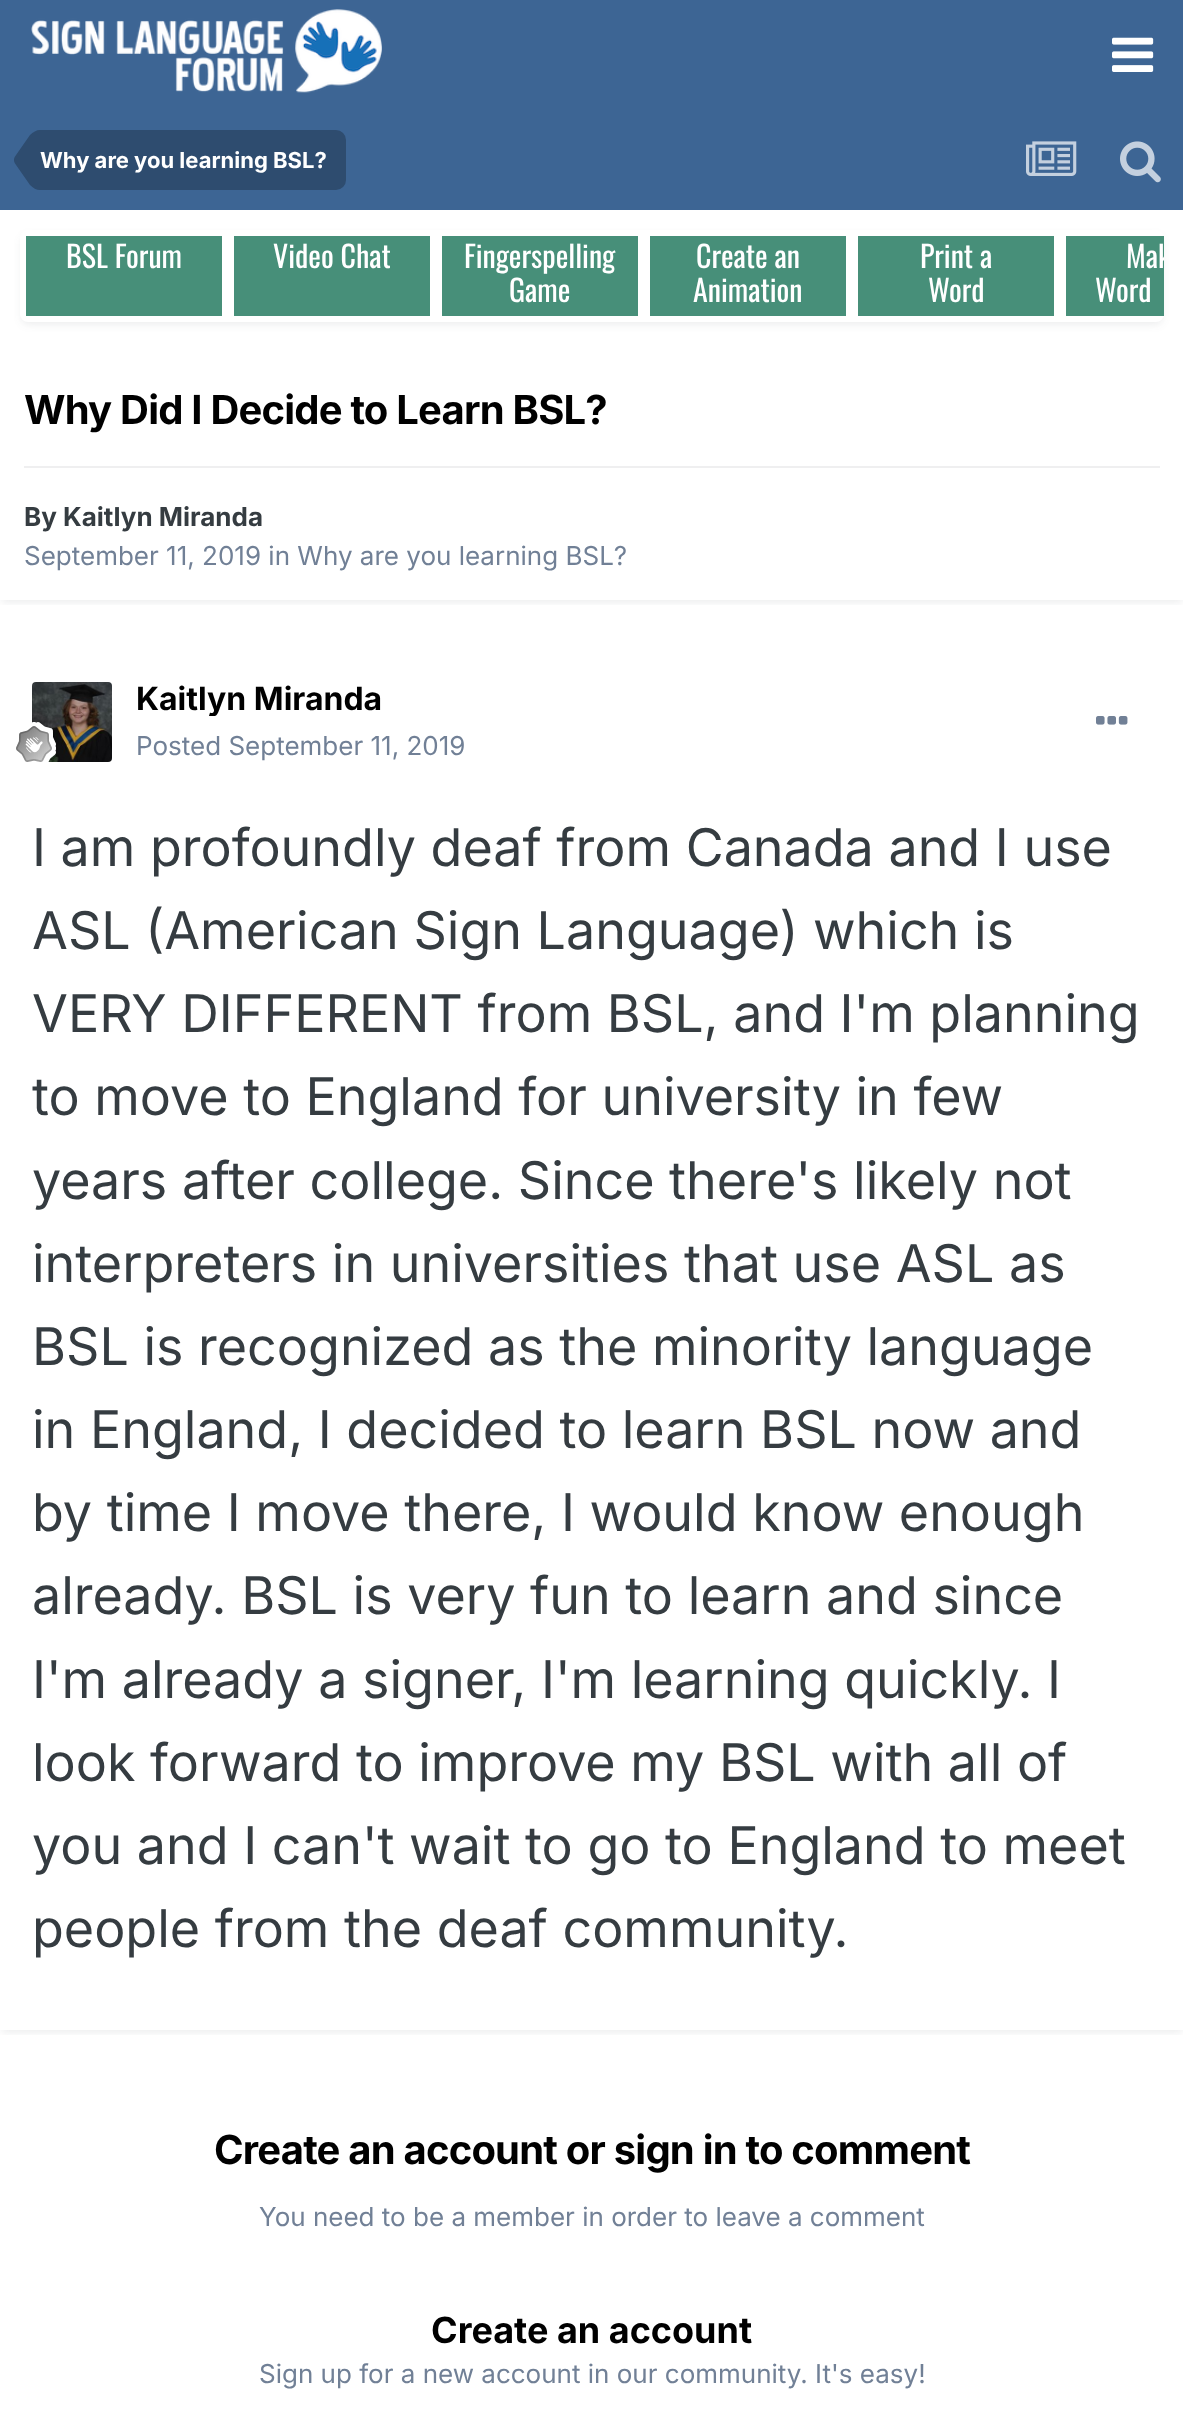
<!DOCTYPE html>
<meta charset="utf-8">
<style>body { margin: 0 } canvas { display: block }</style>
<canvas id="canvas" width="1183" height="2426"></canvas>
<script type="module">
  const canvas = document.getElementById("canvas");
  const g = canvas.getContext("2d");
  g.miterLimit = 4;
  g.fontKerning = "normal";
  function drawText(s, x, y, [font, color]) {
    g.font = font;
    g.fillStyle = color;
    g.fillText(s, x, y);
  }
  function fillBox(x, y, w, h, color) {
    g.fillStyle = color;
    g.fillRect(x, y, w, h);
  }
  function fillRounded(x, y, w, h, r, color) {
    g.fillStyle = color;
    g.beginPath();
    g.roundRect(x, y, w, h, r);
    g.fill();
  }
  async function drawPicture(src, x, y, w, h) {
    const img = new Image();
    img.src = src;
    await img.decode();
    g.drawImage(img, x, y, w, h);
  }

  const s1 = ["bold 22px Inter", "#FFFFFF"];
  const s2 = ["30px Oswald", "#FFFFFF"];
  const s3 = ["bold 40px Inter", "#000000"];
  const s4 = ["bold 26px Inter", "#353C41"];
  const s5 = ["26px Inter", "#718096"];
  const s6 = ["bold 32px Inter", "#000000"];
  const s7 = ["52px Inter", "#353C41"];
  const s8 = ["bold 36px Inter", "#000000"];

  fillBox(0, 0, 1183, 2426, "#FFFFFF");
  fillBox(0, 0, 1183, 210, "#3D6594");
  await drawPicture("pic1.png", 31, 9, 351, 84);
  await drawPicture("pic2.png", 1112, 37, 42, 35);
  g.fillStyle = "#2E4C6F";
  g.beginPath();
  g.roundRect(40, 130, 306, 60, [0, 10, 10, 0]);
  g.fill();
  g.beginPath();
  g.moveTo(40, 160);
  g.lineTo(40, 190);
  g.bezierCurveTo(36.5, 190, 33, 188, 30, 185);
  g.lineTo(15, 163.5);
  g.bezierCurveTo(14.5, 162.5, 14, 161.5, 14, 160);
  g.closePath();
  g.moveTo(40, 160);
  g.lineTo(14, 160);
  g.bezierCurveTo(14, 158.5, 14.5, 157.5, 15, 156.5);
  g.lineTo(30, 135);
  g.bezierCurveTo(33, 132, 36.5, 130, 40, 130);
  g.closePath();
  g.fill();
  drawText("Why are you learning BSL?", 40, 168, s1);
  await drawPicture("pic3.png", 1026, 141, 51, 35);
  await drawPicture("pic4.png", 1120, 141, 41, 42);
  g.fillStyle = "rgba(45, 55, 72, 0.1)";
  g.filter = "blur(4px)";
  g.beginPath();
  g.roundRect(22, 236, 1140, 88, 6);
  g.fill();
  g.filter = "none";
  fillRounded(20, 230, 1144, 92, 8, "#FFFFFF");
  fillBox(26, 236, 196, 80, "#478F79");
  drawText("BSL Forum", 66, 268, s2);
  fillBox(234, 236, 196, 80, "#478F79");
  drawText("Video Chat", 273, 268, s2);
  fillBox(442, 236, 196, 80, "#478F79");
  drawText("Fingerspelling", 464, 268, s2);
  drawText("Game", 509, 302, s2);
  fillBox(650, 236, 196, 80, "#478F79");
  drawText("Create an", 696, 268, s2);
  drawText("Animation", 693, 302, s2);
  fillBox(858, 236, 196, 80, "#478F79");
  drawText("Print a", 920, 268, s2);
  drawText("Word", 928, 302, s2);
  fillBox(1066, 236, 98, 80, "#478F79");
  g.save();
  g.beginPath();
  g.rect(20, 230, 1144, 92);
  g.clip();
  drawText("Mak", 1126, 268, s2);
  g.restore();
  drawText("Word", 1095, 302, s2);
  g.save();
  g.beginPath();
  g.rect(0, 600, 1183, 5);
  g.clip();
  g.fillStyle = "rgba(45, 55, 72, 0.1)";
  g.filter = "blur(4px)";
  g.beginPath();
  g.rect(2, 368, 1180, 234);
  g.fill();
  g.filter = "none";
  g.restore();
  g.letterSpacing = "-0.8px";
  drawText("Why Did I Decide to Learn BSL?", 24, 424, s3);
  fillBox(24, 466, 1136, 2, "#EFEFF0");
  g.letterSpacing = "0px";
  drawText("By Kaitlyn Miranda", 24, 526, s4);
  drawText("September 11, 2019 in Why are you learning BSL?", 24, 565, s5);
  g.save();
  g.beginPath();
  g.rect(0, 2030, 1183, 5);
  g.clip();
  g.fillStyle = "rgba(45, 55, 72, 0.1)";
  g.filter = "blur(4px)";
  g.beginPath();
  g.rect(2, 646, 1180, 1386);
  g.fill();
  g.filter = "none";
  g.restore();
  await drawPicture("pic5.png", 32, 682, 80, 80);
  await drawPicture("pic6.png", 16, 722, 40, 40);
  g.save();
  g.beginPath();
  g.rect(136, 680, 246, 36);
  g.clip();
  drawText("Kaitlyn Miranda", 136, 710, s6);
  g.restore();
  drawText("Posted September 11, 2019", 136, 755, s5);
  await drawPicture("pic7.png", 1096, 716, 32, 9);
  drawText("I am profoundly deaf from Canada and I use", 32, 866, s7);
  drawText("ASL (American Sign Language) which is", 32, 949, s7);
  drawText("VERY DIFFERENT from BSL, and I'm planning", 32, 1032, s7);
  drawText("to move to England for university in few", 32, 1115, s7);
  drawText("years after college. Since there's likely not", 32, 1199, s7);
  drawText("interpreters in universities that use ASL as", 32, 1282, s7);
  drawText("BSL is recognized as the minority language", 32, 1365, s7);
  drawText("in England, I decided to learn BSL now and", 32, 1448, s7);
  drawText("by time I move there, I would know enough", 32, 1531, s7);
  drawText("already. BSL is very fun to learn and since", 32, 1614, s7);
  drawText("I'm already a signer, I'm learning quickly. I", 32, 1698, s7);
  drawText("look forward to improve my BSL with all of", 32, 1781, s7);
  drawText("you and I can't wait to go to England to meet", 32, 1864, s7);
  drawText("people from the deaf community.", 32, 1947, s7);
  g.letterSpacing = "-0.8px";
  drawText("Create an account or sign in to comment", 214, 2164, s3);
  g.letterSpacing = "0px";
  drawText("You need to be a member in order to leave a comment", 259, 2226, s5);
  drawText("Create an account", 431, 2343, s8);
  drawText("Sign up for a new account in our community. It's easy!", 259, 2383, s5);
</script>
